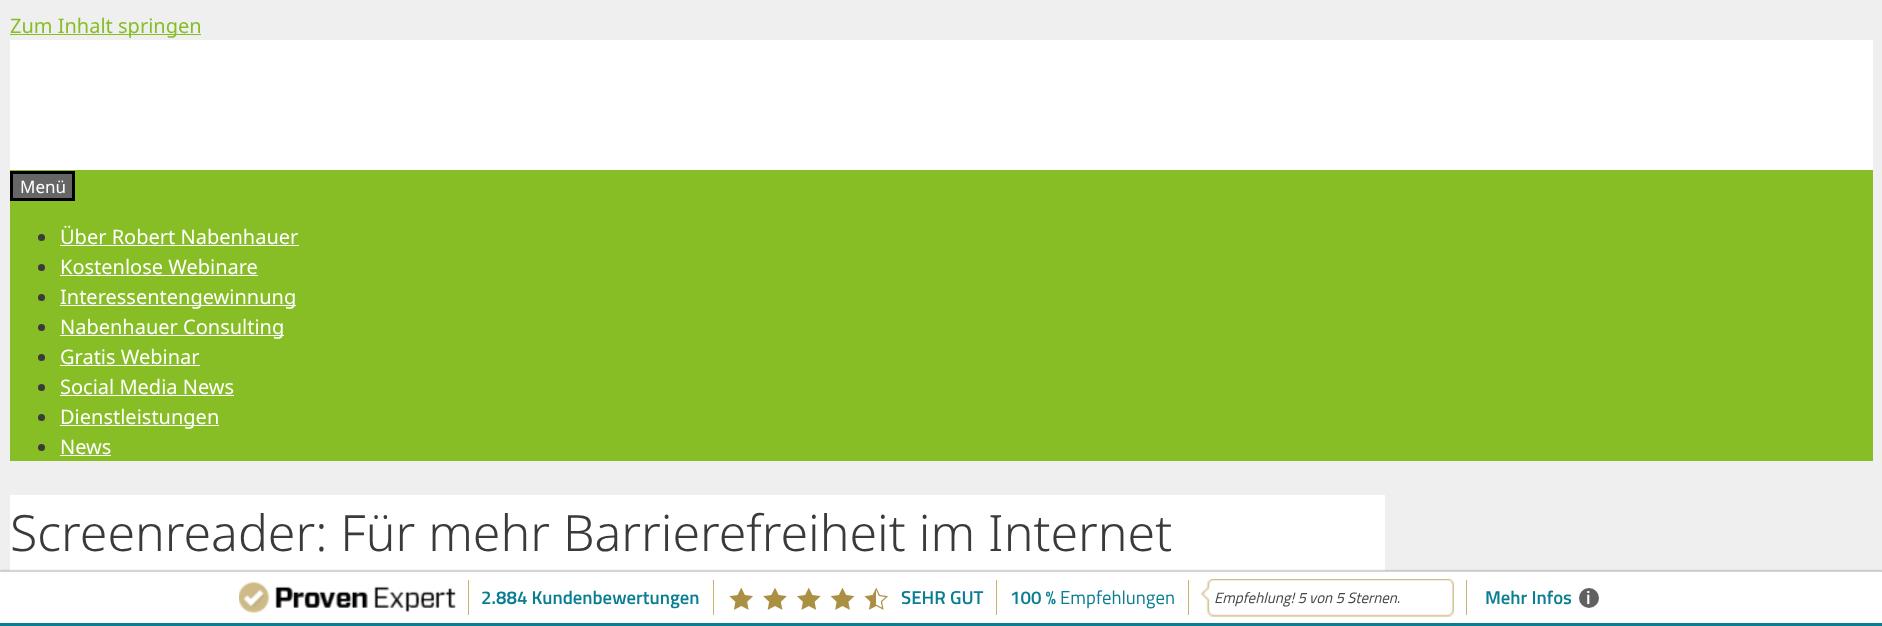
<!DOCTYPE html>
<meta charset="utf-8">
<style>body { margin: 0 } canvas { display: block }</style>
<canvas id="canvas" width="1882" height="626"></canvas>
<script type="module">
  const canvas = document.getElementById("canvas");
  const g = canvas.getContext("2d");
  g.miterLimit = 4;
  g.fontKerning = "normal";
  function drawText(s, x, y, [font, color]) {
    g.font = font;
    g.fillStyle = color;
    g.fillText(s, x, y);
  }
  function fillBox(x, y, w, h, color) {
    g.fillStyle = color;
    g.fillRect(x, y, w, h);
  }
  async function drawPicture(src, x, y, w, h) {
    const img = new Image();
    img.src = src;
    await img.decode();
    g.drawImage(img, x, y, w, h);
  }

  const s1 = ["20px Noto Sans", "#87BD25"];
  const s2 = ["17px Noto Sans", "#FFFFFF"];
  const s3 = ["20px Noto Sans", "#FFFFFF"];
  const s4 = ["300 50px Noto Sans", "#3A3A3A"];
  const s5 = ["600 18.75px Titillium Web", "#097E92"];
  const s6 = ["18.75px Titillium Web", "#097E92"];
  const s7 = ["italic 15px Titillium Web", "#444444"];
  const s8 = ["600 18.75px Titillium Web", "#FFFFFF"];

  fillBox(0, 0, 1882, 626, "#EFEFEF");
  fillBox(10, 34, 191, 1, "#87BD25");
  drawText("Zum Inhalt springen", 10, 33, s1);
  fillBox(10, 40, 1863, 130, "#FFFFFF");
  fillBox(10, 170, 1863, 291, "#87BD25");
  g.fillStyle = "#666666";
  g.beginPath();
  g.rect(11.5, 172.5, 62, 27);
  g.fill();
  g.strokeStyle = "#000000";
  g.lineWidth = 3;
  g.stroke();
  drawText("Menü", 20, 193, s2);
  g.fillStyle = "#3A3A3A";
  g.beginPath();
  g.arc(41.5, 237.5, 3.5, 0, Math.PI * 2);
  g.fill();
  drawText("Über Robert Nabenhauer", 60, 244, s3);
  fillBox(60, 245, 239, 1, "#FFFFFF");
  g.fillStyle = "#3A3A3A";
  g.beginPath();
  g.arc(41.5, 267.5, 3.5, 0, Math.PI * 2);
  g.fill();
  drawText("Kostenlose Webinare", 60, 274, s3);
  fillBox(60, 275, 198, 1, "#FFFFFF");
  g.fillStyle = "#3A3A3A";
  g.beginPath();
  g.arc(41.5, 297.5, 3.5, 0, Math.PI * 2);
  g.fill();
  fillBox(60, 305, 236, 1, "#FFFFFF");
  drawText("Interessentengewinnung", 60, 304, s3);
  g.fillStyle = "#3A3A3A";
  g.beginPath();
  g.arc(41.5, 327.5, 3.5, 0, Math.PI * 2);
  g.fill();
  fillBox(60, 335, 224, 1, "#FFFFFF");
  drawText("Nabenhauer Consulting", 60, 334, s3);
  g.fillStyle = "#3A3A3A";
  g.beginPath();
  g.arc(41.5, 357.5, 3.5, 0, Math.PI * 2);
  g.fill();
  drawText("Gratis Webinar", 60, 364, s3);
  fillBox(60, 365, 140, 1, "#FFFFFF");
  g.fillStyle = "#3A3A3A";
  g.beginPath();
  g.arc(41.5, 387.5, 3.5, 0, Math.PI * 2);
  g.fill();
  drawText("Social Media News", 60, 394, s3);
  fillBox(60, 395, 174, 1, "#FFFFFF");
  g.fillStyle = "#3A3A3A";
  g.beginPath();
  g.arc(41.5, 417.5, 3.5, 0, Math.PI * 2);
  g.fill();
  fillBox(60, 425, 159, 1, "#FFFFFF");
  drawText("Dienstleistungen", 60, 424, s3);
  g.fillStyle = "#3A3A3A";
  g.beginPath();
  g.arc(41.5, 447.5, 3.5, 0, Math.PI * 2);
  g.fill();
  drawText("News", 60, 454, s3);
  fillBox(60, 455, 51, 1, "#FFFFFF");
  fillBox(10, 495, 1375, 76, "#FFFFFF");
  drawText("Screenreader: Für mehr Barrierefreiheit im Internet", 10, 551, s4);
  g.fillStyle = "#888888";
  g.filter = "blur(1px)";
  g.beginPath();
  g.rect(0, 571, 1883, 55);
  g.fill();
  g.filter = "none";
  fillBox(0, 572, 1882, 51, "#FFFFFF");
  fillBox(0, 571, 1882, 1, "#D3D3D3");
  await drawPicture("pic1.png", 239, 581, 217, 32);
  fillBox(468, 580, 1, 35, "#C8B274");
  drawText("2.884 Kundenbewertungen", 481, 604, s5);
  fillBox(713, 580, 1, 35, "#C8B274");
  await drawPicture("pic2.png", 729, 587, 24, 23);
  await drawPicture("pic3.png", 763, 587, 24, 23);
  await drawPicture("pic4.png", 797, 587, 24, 23);
  await drawPicture("pic5.png", 830, 587, 25, 23);
  await drawPicture("pic6.png", 864, 587, 24, 23);
  drawText("SEHR GUT", 901, 604, s5);
  fillBox(996, 580, 1, 35, "#C8B274");
  drawText("100 %", 1010, 604, s5);
  drawText("Empfehlungen", 1060, 604, s6);
  fillBox(1188, 580, 1, 35, "#C8B274");
  await drawPicture("pic7.png", 1200, 579, 254, 38);
  drawText("Empfehlung! 5 von 5 Sternen.", 1214, 603, s7);
  fillBox(1466, 580, 1, 35, "#C8B274");
  drawText("Mehr Infos", 1485, 604, s5);
  g.fillStyle = "#616161";
  g.beginPath();
  g.arc(1589, 598, 10, 0, Math.PI * 2);
  g.fill();
  drawText("i", 1586, 604, s8);
  fillBox(0, 623, 1882, 3, "#097E92");
</script>
